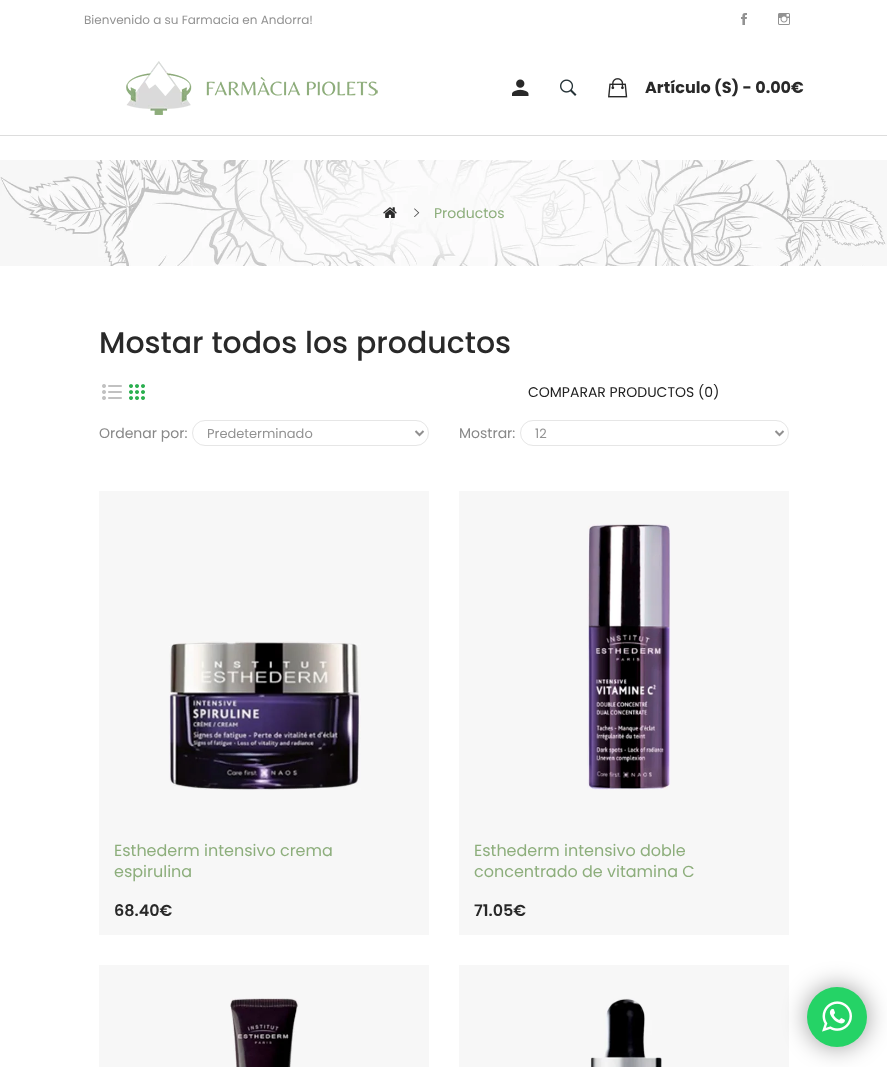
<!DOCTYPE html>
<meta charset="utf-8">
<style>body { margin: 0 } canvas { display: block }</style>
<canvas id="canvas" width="887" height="1067"></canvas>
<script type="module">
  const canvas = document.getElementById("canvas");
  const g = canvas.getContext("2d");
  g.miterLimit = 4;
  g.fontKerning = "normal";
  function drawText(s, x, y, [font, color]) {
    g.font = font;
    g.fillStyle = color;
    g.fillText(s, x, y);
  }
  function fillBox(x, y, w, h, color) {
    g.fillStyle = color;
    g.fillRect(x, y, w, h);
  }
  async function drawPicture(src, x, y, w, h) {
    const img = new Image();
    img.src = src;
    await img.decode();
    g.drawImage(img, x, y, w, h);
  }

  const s1 = ["12px Poppins", "#929292"];
  const s2 = ["bold 16px Poppins", "#292929"];
  const s3 = ["14px Poppins", "#8DAE7C"];
  const s4 = ["500 30px Poppins", "#292929"];
  const s5 = ["14px Poppins", "#222222"];
  const s6 = ["14px Poppins", "#888888"];
  const s7 = ["13px Poppins", "#929292"];
  const s8 = ["16px Poppins", "#8DAE7C"];
  const s9 = ["600 16px Poppins", "#292929"];

  fillBox(0, 0, 887, 1067, "#FFFFFF");
  drawText("Bienvenido a su Farmacia en Andorra!", 84, 24, s1);
  await drawPicture("pic1.png", 741, 13, 6, 12);
  await drawPicture("pic2.png", 778, 13, 12, 12);
  fillBox(0, 135, 887, 1, "#DDDDDD");
  await drawPicture("pic3.png", 126, 61, 252, 54);
  await drawPicture("pic4.png", 512, 79, 17, 17);
  await drawPicture("pic5.png", 560, 79, 17, 17);
  await drawPicture("pic6.png", 608, 78, 20, 20);
  drawText("Artículo (S) - 0.00€", 645, 93, s2);
  await drawPicture("pic7.png", 0, 160, 887, 106);
  await drawPicture("pic8.png", 383, 207, 14, 11);
  await drawPicture("pic9.png", 414, 208, 6, 9);
  drawText("Productos", 434, 218, s3);
  drawText("Mostar todos los productos", 99, 353, s4);
  await drawPicture("pic10.png", 102, 384, 20, 16);
  await drawPicture("pic11.png", 129, 384, 16, 16);
  drawText("COMPARAR PRODUCTOS (0)", 528, 397, s5);
  drawText("Ordenar por:", 99, 438, s6);
  g.beginPath();
  g.roundRect(192.5, 420.5, 236, 25, 12.5);
  g.strokeStyle = "#E6E6E6";
  g.stroke();
  g.beginPath();
  g.moveTo(415.5, 431);
  g.lineTo(419.5, 435);
  g.lineTo(423.5, 431);
  g.strokeStyle = "#908F8F";
  g.lineWidth = 2;
  g.stroke();
  drawText("Predeterminado", 207, 438, s7);
  drawText("Mostrar:", 459, 438, s6);
  g.beginPath();
  g.roundRect(520.5, 420.5, 268, 25, 12.5);
  g.strokeStyle = "#E6E6E6";
  g.lineWidth = 1;
  g.stroke();
  g.beginPath();
  g.moveTo(775.5, 431);
  g.lineTo(779.5, 435);
  g.lineTo(783.5, 431);
  g.strokeStyle = "#908F8F";
  g.lineWidth = 2;
  g.stroke();
  drawText("12", 535, 438, s7);
  fillBox(99, 491, 330, 444, "#F7F7F7");
  await drawPicture("pic12.png", 169, 641, 192, 149);
  drawText("Esthederm intensivo crema", 114, 856, s8);
  drawText("espirulina", 114, 877, s8);
  drawText("68.40€", 114, 916, s9);
  fillBox(459, 491, 330, 444, "#F7F7F7");
  await drawPicture("pic13.png", 587, 524, 84, 266);
  drawText("Esthederm intensivo doble", 474, 856, s8);
  drawText("concentrado de vitamina C", 474, 877, s8);
  drawText("71.05€", 474, 916, s9);
  fillBox(99, 965, 330, 102, "#F7F7F7");
  await drawPicture("pic14.png", 230, 998, 69, 69);
  fillBox(459, 965, 330, 102, "#F7F7F7");
  await drawPicture("pic15.png", 590, 998, 72, 69);
  g.fillStyle = "rgba(0, 0, 0, 0.4)";
  g.filter = "blur(12.5px)";
  g.beginPath();
  g.roundRect(807, 987, 60, 60, 30);
  g.fill();
  g.filter = "none";
  g.fillStyle = "#25D366";
  g.beginPath();
  g.arc(837, 1017, 30, 0, Math.PI * 2);
  g.fill();
  await drawPicture("pic16.png", 822, 1001, 30, 31);
</script>
